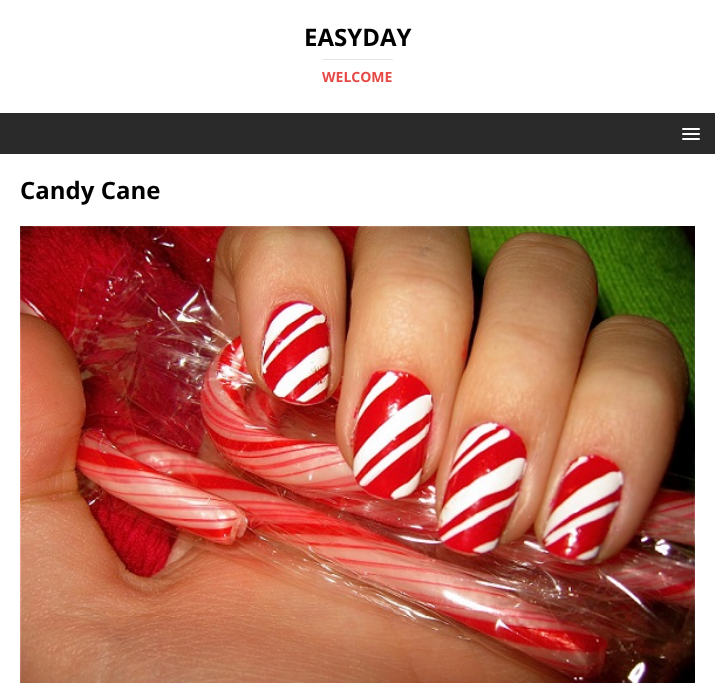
<!DOCTYPE html>
<meta charset="utf-8">
<style>body { margin: 0 } canvas { display: block }</style>
<canvas id="canvas" width="715" height="683"></canvas>
<script type="module">
  const canvas = document.getElementById("canvas");
  const g = canvas.getContext("2d");
  g.miterLimit = 4;
  g.fontKerning = "normal";
  function drawText(s, x, y, [font, color]) {
    g.font = font;
    g.fillStyle = color;
    g.fillText(s, x, y);
  }
  function fillBox(x, y, w, h, color) {
    g.fillStyle = color;
    g.fillRect(x, y, w, h);
  }
  function fillRounded(x, y, w, h, r, color) {
    g.fillStyle = color;
    g.beginPath();
    g.roundRect(x, y, w, h, r);
    g.fill();
  }
  async function drawPicture(src, x, y, w, h) {
    const img = new Image();
    img.src = src;
    await img.decode();
    g.drawImage(img, x, y, w, h);
  }

  const s1 = ["bold 24px Open Sans", "#000000"];
  const s2 = ["bold 14px Open Sans", "#E64946"];

  fillBox(0, 0, 715, 683, "#FFFFFF");
  drawText("EASYDAY", 304, 46, s1);
  fillBox(322, 59, 71, 1, "#E5E5E5");
  drawText("WELCOME", 322, 82, s2);
  fillBox(0, 113, 715, 41, "#2A2A2A");
  fillRounded(682, 128, 18, 2, 1, "#FFFFFF");
  fillRounded(682, 133, 18, 2, 1, "#FFFFFF");
  fillRounded(682, 138, 18, 2, 1, "#FFFFFF");
  drawText("Candy Cane", 20, 199, s1);
  await drawPicture("pic1.png", 20, 226, 675, 457);
</script>
